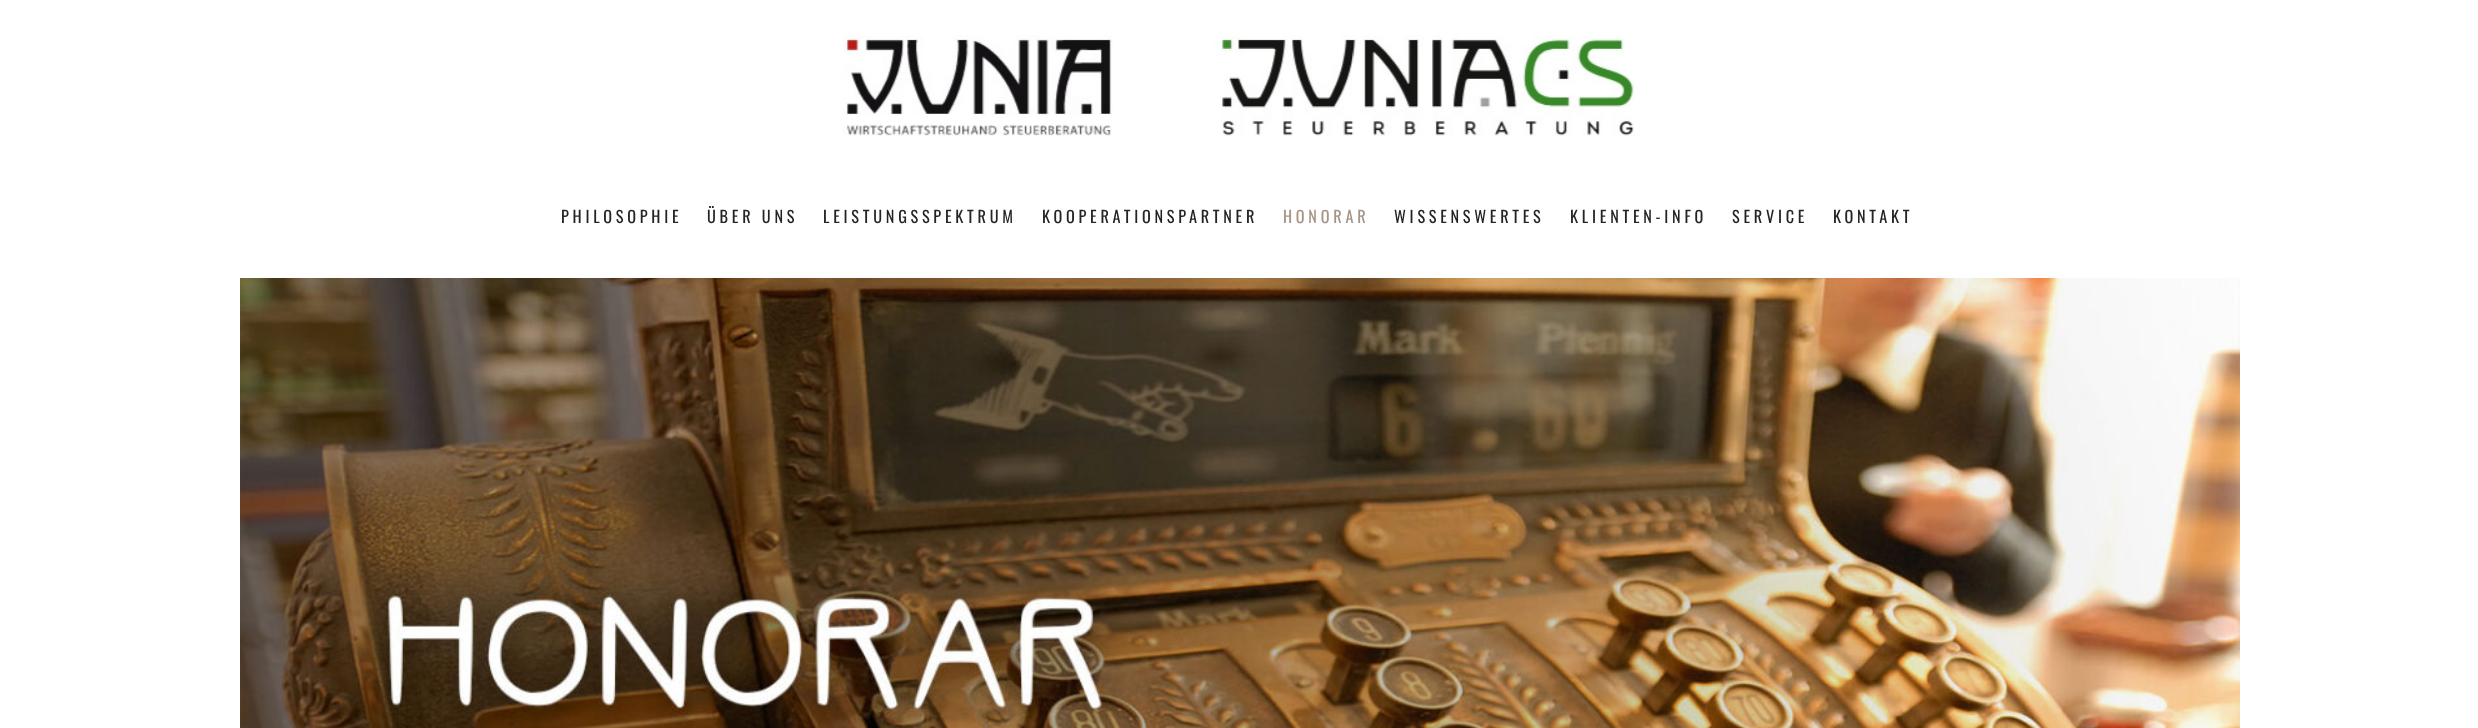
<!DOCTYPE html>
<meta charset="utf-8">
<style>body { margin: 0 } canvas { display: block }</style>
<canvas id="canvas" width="2478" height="728"></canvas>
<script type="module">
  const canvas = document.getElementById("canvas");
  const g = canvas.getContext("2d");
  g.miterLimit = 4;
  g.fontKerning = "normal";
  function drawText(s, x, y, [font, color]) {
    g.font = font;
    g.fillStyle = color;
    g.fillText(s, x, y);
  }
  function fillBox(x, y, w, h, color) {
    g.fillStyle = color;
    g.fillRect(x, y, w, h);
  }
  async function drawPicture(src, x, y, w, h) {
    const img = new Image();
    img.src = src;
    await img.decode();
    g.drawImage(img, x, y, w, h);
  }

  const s1 = ["16.25px Oswald", "#242424"];
  const s2 = ["16.25px Oswald", "#A69586"];

  fillBox(0, 0, 2478, 728, "#FFFFFF");
  await drawPicture("pic1.png", 842, 35, 793, 101);
  g.letterSpacing = "3.75px";
  drawText("PHILOSOPHIE", 561, 223, s1);
  drawText("ÜBER UNS", 707, 223, s1);
  drawText("LEISTUNGSSPEKTRUM", 823, 223, s1);
  drawText("KOOPERATIONSPARTNER", 1042, 223, s1);
  drawText("HONORAR", 1283, 223, s2);
  drawText("WISSENSWERTES", 1394, 223, s1);
  drawText("KLIENTEN-INFO", 1570, 223, s1);
  drawText("SERVICE", 1732, 223, s1);
  drawText("KONTAKT", 1833, 223, s1);
  await drawPicture("pic2.png", 240, 278, 2000, 450);
</script>
